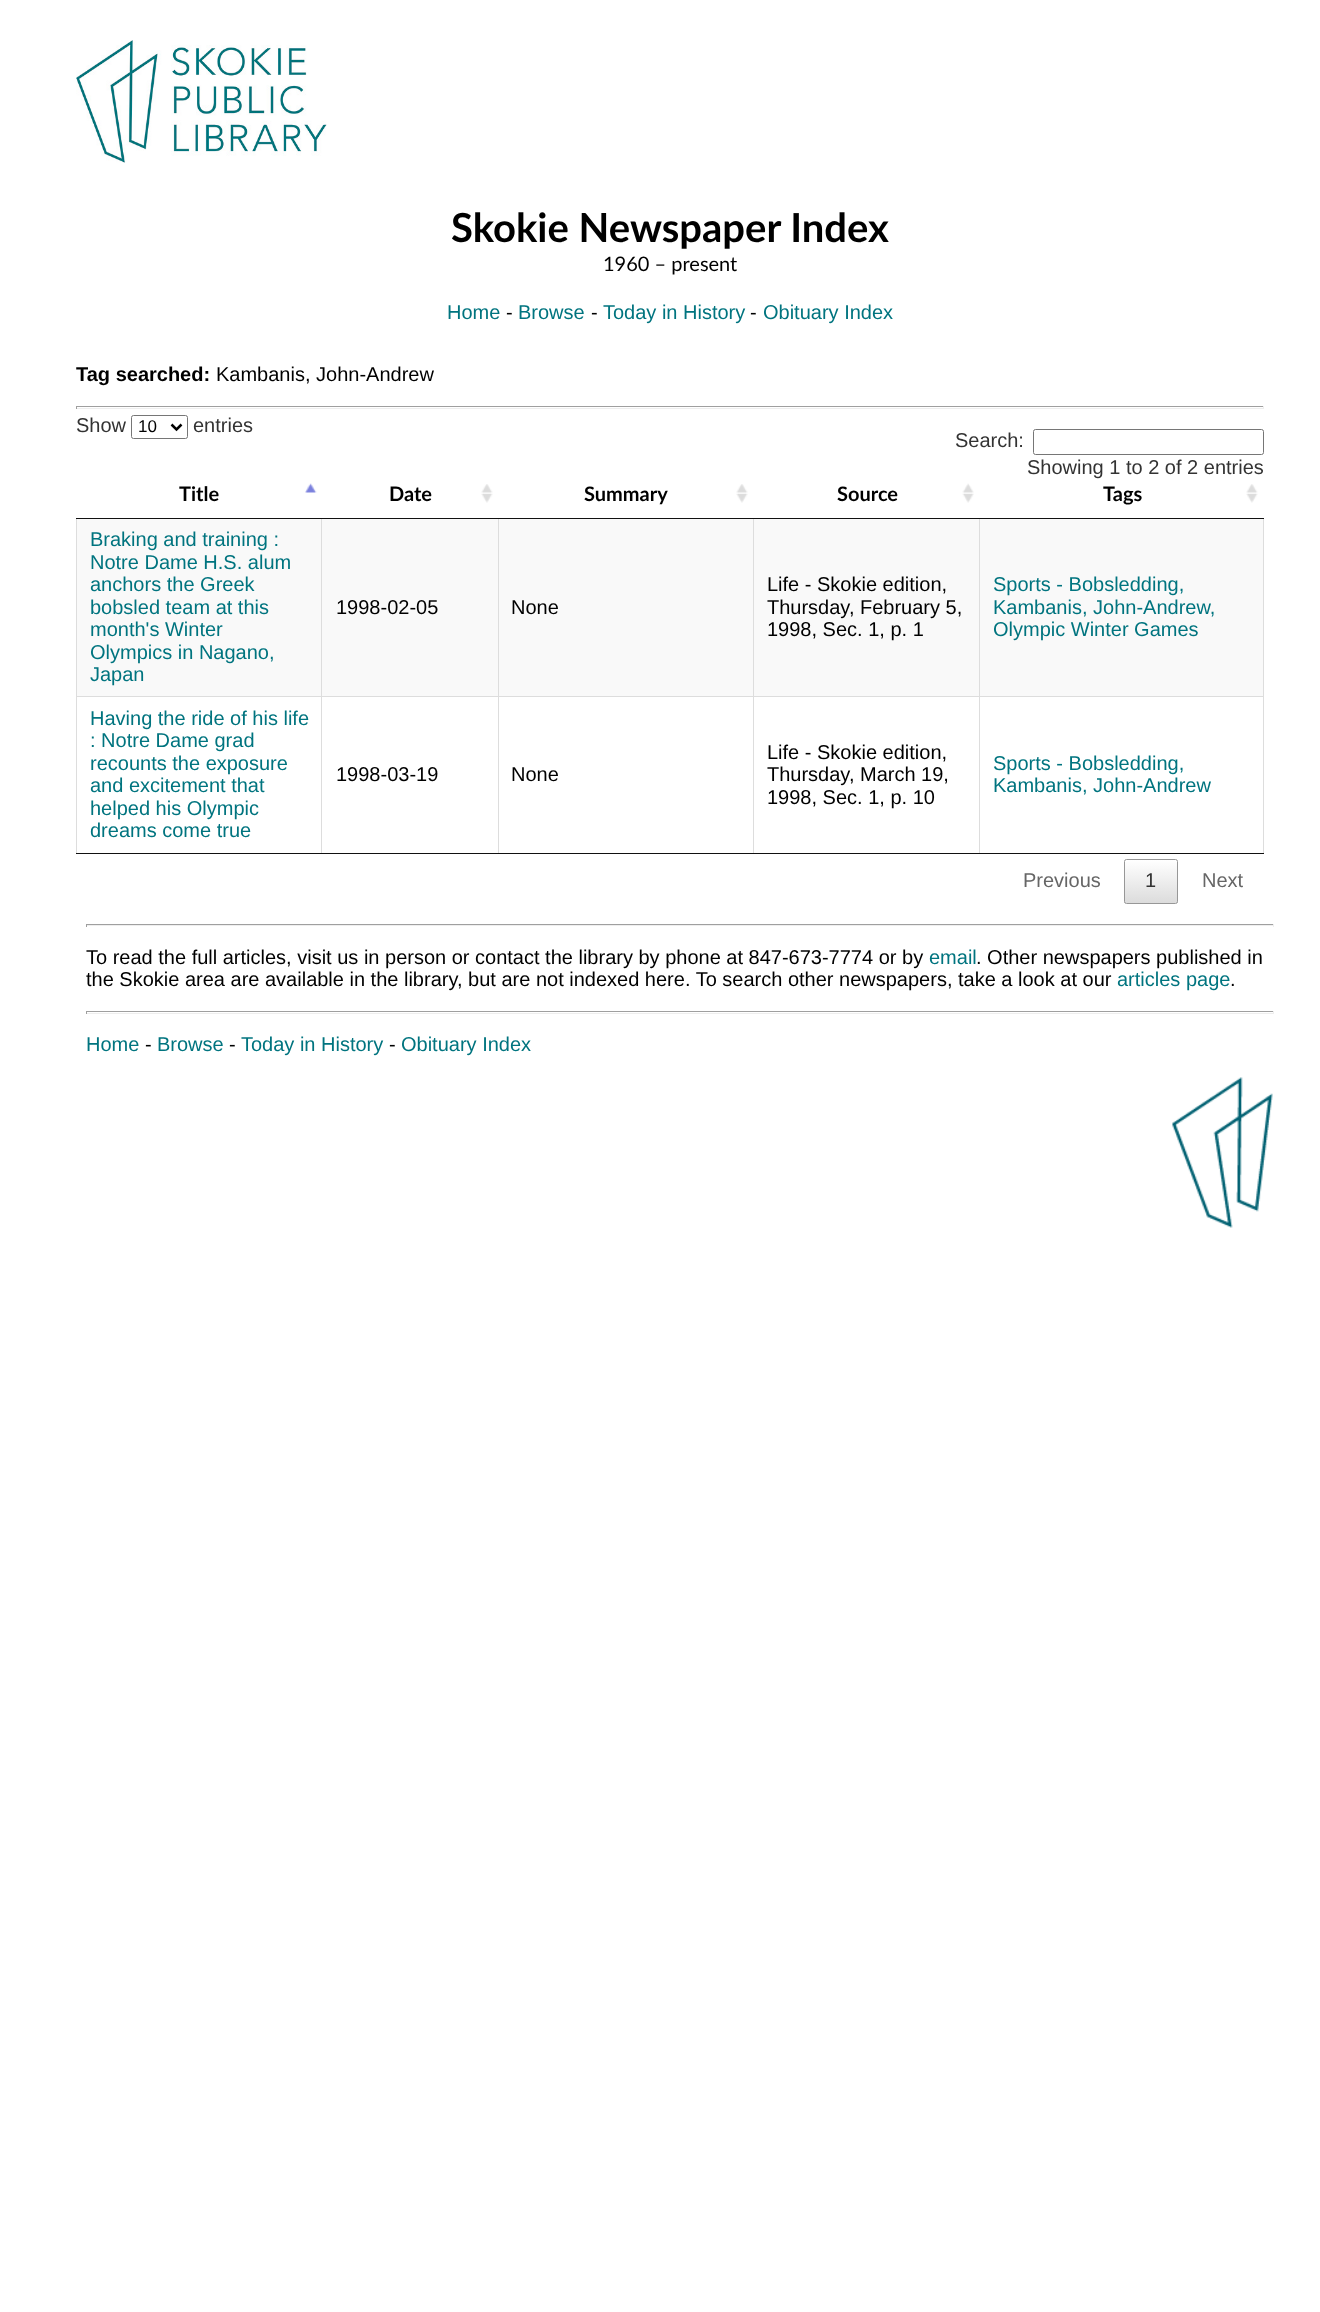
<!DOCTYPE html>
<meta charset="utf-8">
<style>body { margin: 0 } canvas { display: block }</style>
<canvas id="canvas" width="1320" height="2312"></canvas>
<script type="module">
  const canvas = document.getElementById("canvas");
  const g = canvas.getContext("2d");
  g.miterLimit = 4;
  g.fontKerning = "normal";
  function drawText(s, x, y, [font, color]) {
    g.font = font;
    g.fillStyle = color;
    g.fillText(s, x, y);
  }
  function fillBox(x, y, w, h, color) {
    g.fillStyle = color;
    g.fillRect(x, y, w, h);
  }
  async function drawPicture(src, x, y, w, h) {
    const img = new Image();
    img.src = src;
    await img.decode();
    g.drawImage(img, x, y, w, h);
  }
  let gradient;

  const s1 = ["bold 40px Lato", "#000000"];
  const s2 = ["20px Lato", "#000000"];
  const s3 = ["20px Liberation Sans", "#00747F"];
  const s4 = ["20px Liberation Sans", "#000000"];
  const s5 = ["bold 20px Liberation Sans", "#000000"];
  const s6 = ["20px Liberation Sans", "#333333"];
  const s7 = ["17px Liberation Sans", "#000000"];
  const s8 = ["bold 20px Lato", "#000000"];
  const s9 = ["20px Liberation Sans", "#666666"];

  fillBox(0, 0, 1320, 2312, "#FFFFFF");
  await drawPicture("pic1.png", 76, 40, 251, 123);
  drawText("Skokie Newspaper Index", 451, 242, s1);
  drawText("1960 – present", 603, 271, s2);
  drawText("Home", 447, 319, s3);
  drawText("-", 506, 319, s4);
  drawText("Browse", 518, 319, s3);
  drawText("-", 591, 319, s4);
  drawText("Today in History", 603, 319, s3);
  drawText("-", 750, 319, s4);
  drawText("Obituary Index", 763, 319, s3);
  drawText("Tag searched:", 76, 381, s5);
  drawText("Kambanis, John-Andrew", 216, 381, s4);
  fillBox(76, 406, 1188, 1, "#9F9F9F");
  fillBox(1263, 406, 1, 3, "#EEEEEE");
  fillBox(76, 408, 1188, 1, "#EEEEEE");
  fillBox(76, 406, 1, 3, "#9F9F9F");
  drawText("Show", 76, 432, s6);
  g.beginPath();
  g.roundRect(131.5, 415.5, 56, 23, 2);
  g.strokeStyle = "#767676";
  g.stroke();
  g.beginPath();
  g.moveTo(171.5, 424.5);
  g.lineTo(176.5, 429.5);
  g.lineTo(181.5, 424.5);
  g.strokeStyle = "#000000";
  g.lineWidth = 2.5;
  g.stroke();
  drawText("10", 138, 432, s7);
  drawText("entries", 193, 432, s6);
  drawText("Search:", 955, 447, s6);
  g.beginPath();
  g.roundRect(1033.5, 429.5, 230, 25, 2);
  g.strokeStyle = "#767676";
  g.lineWidth = 1;
  g.stroke();
  drawText("Showing 1 to 2 of 2 entries", 1027, 474, s6);
  fillBox(76, 853, 1188, 1, "#111111");
  await drawPicture("pic2.png", 305, 483, 12, 10);
  fillBox(76, 518, 1188, 1, "#111111");
  drawText("Title", 179, 501, s8);
  await drawPicture("pic3.png", 481, 484, 12, 19);
  drawText("Date", 389, 501, s8);
  await drawPicture("pic3.png", 736, 484, 12, 19);
  drawText("Summary", 584, 501, s8);
  await drawPicture("pic4.png", 962, 483, 12, 20);
  drawText("Source", 837, 501, s8);
  await drawPicture("pic5.png", 1246, 484, 12, 19);
  drawText("Tags", 1103, 501, s8);
  fillBox(77, 519, 1186, 177, "#F9F9F9");
  fillBox(321, 519, 1, 177, "#DDDDDD");
  fillBox(76, 519, 1, 177, "#DDDDDD");
  drawText("Braking and training :", 90, 546, s3);
  drawText("Notre Dame H.S. alum", 90, 569, s3);
  drawText("anchors the Greek", 90, 591, s3);
  drawText("bobsled team at this", 90, 614, s3);
  drawText("month's Winter", 90, 636, s3);
  drawText("Olympics in Nagano,", 90, 659, s3);
  drawText("Japan", 90, 681, s3);
  fillBox(498, 519, 1, 177, "#DDDDDD");
  drawText("1998-02-05", 336, 614, s4);
  fillBox(753, 519, 1, 177, "#DDDDDD");
  drawText("None", 511, 614, s4);
  fillBox(979, 519, 1, 177, "#DDDDDD");
  drawText("Life - Skokie edition,", 767, 591, s4);
  drawText("Thursday, February 5,", 767, 614, s4);
  drawText("1998, Sec. 1, p. 1", 767, 636, s4);
  fillBox(1263, 519, 1, 177, "#DDDDDD");
  drawText("Sports - Bobsledding,", 993, 591, s3);
  drawText("Kambanis, John-Andrew,", 993, 614, s3);
  drawText("Olympic Winter Games", 993, 636, s3);
  fillBox(76, 696, 1188, 1, "#DDDDDD");
  fillBox(321, 696, 1, 157, "#DDDDDD");
  fillBox(76, 696, 1, 157, "#DDDDDD");
  drawText("Having the ride of his life", 90, 725, s3);
  drawText(": Notre Dame grad", 90, 747, s3);
  drawText("recounts the exposure", 90, 770, s3);
  drawText("and excitement that", 90, 792, s3);
  drawText("helped his Olympic", 90, 815, s3);
  drawText("dreams come true", 90, 837, s3);
  fillBox(498, 696, 1, 157, "#DDDDDD");
  drawText("1998-03-19", 336, 781, s4);
  fillBox(753, 696, 1, 157, "#DDDDDD");
  drawText("None", 511, 781, s4);
  fillBox(979, 696, 1, 157, "#DDDDDD");
  drawText("Life - Skokie edition,", 767, 759, s4);
  drawText("Thursday, March 19,", 767, 781, s4);
  drawText("1998, Sec. 1, p. 10", 767, 804, s4);
  fillBox(1263, 696, 1, 157, "#DDDDDD");
  drawText("Sports - Bobsledding,", 993, 770, s3);
  drawText("Kambanis, John-Andrew", 993, 792, s3);
  drawText("Previous", 1023, 887, s9);
  g.save();
  g.beginPath();
  g.roundRect(1124, 859, 54, 45, 2.5);
  g.clip();
  gradient = g.createLinearGradient(1151, 860, 1151, 903);
  gradient.addColorStop(0, "#FFFFFF");
  gradient.addColorStop(1, "#DCDCDC");
  g.fillStyle = gradient;
  g.fillRect(1124, 860, 54, 43);
  g.restore();
  g.beginPath();
  g.roundRect(1124.5, 859.5, 53, 44, 2);
  g.strokeStyle = "#979797";
  g.stroke();
  drawText("1", 1145, 887, s6);
  drawText("Next", 1202, 887, s9);
  fillBox(86, 924, 1188, 1, "#9F9F9F");
  fillBox(1273, 924, 1, 3, "#EEEEEE");
  fillBox(86, 925, 1188, 1, "#EEEEEE");
  fillBox(86, 924, 1, 3, "#9F9F9F");
  drawText("To read the full articles, visit us in person or contact the library by phone at 847-673-7774 or by", 86, 964, s4);
  drawText("email", 929, 964, s3);
  drawText(". Other newspapers published in", 976, 964, s4);
  drawText("the Skokie area are available in the library, but are not indexed here. To search other newspapers, take a look at our", 86, 986, s4);
  drawText("articles page", 1117, 986, s3);
  drawText(".", 1230, 986, s4);
  fillBox(86, 1011, 1188, 1, "#9F9F9F");
  fillBox(1273, 1011, 1, 3, "#EEEEEE");
  fillBox(86, 1013, 1188, 1, "#EEEEEE");
  fillBox(86, 1011, 1, 3, "#9F9F9F");
  drawText("Home", 86, 1051, s3);
  drawText("-", 145, 1051, s4);
  drawText("Browse", 157, 1051, s3);
  drawText("-", 229, 1051, s4);
  drawText("Today in History", 241, 1051, s3);
  drawText("-", 389, 1051, s4);
  drawText("Obituary Index", 401, 1051, s3);
  await drawPicture("pic6.png", 1172, 1077, 101, 151);
</script>
